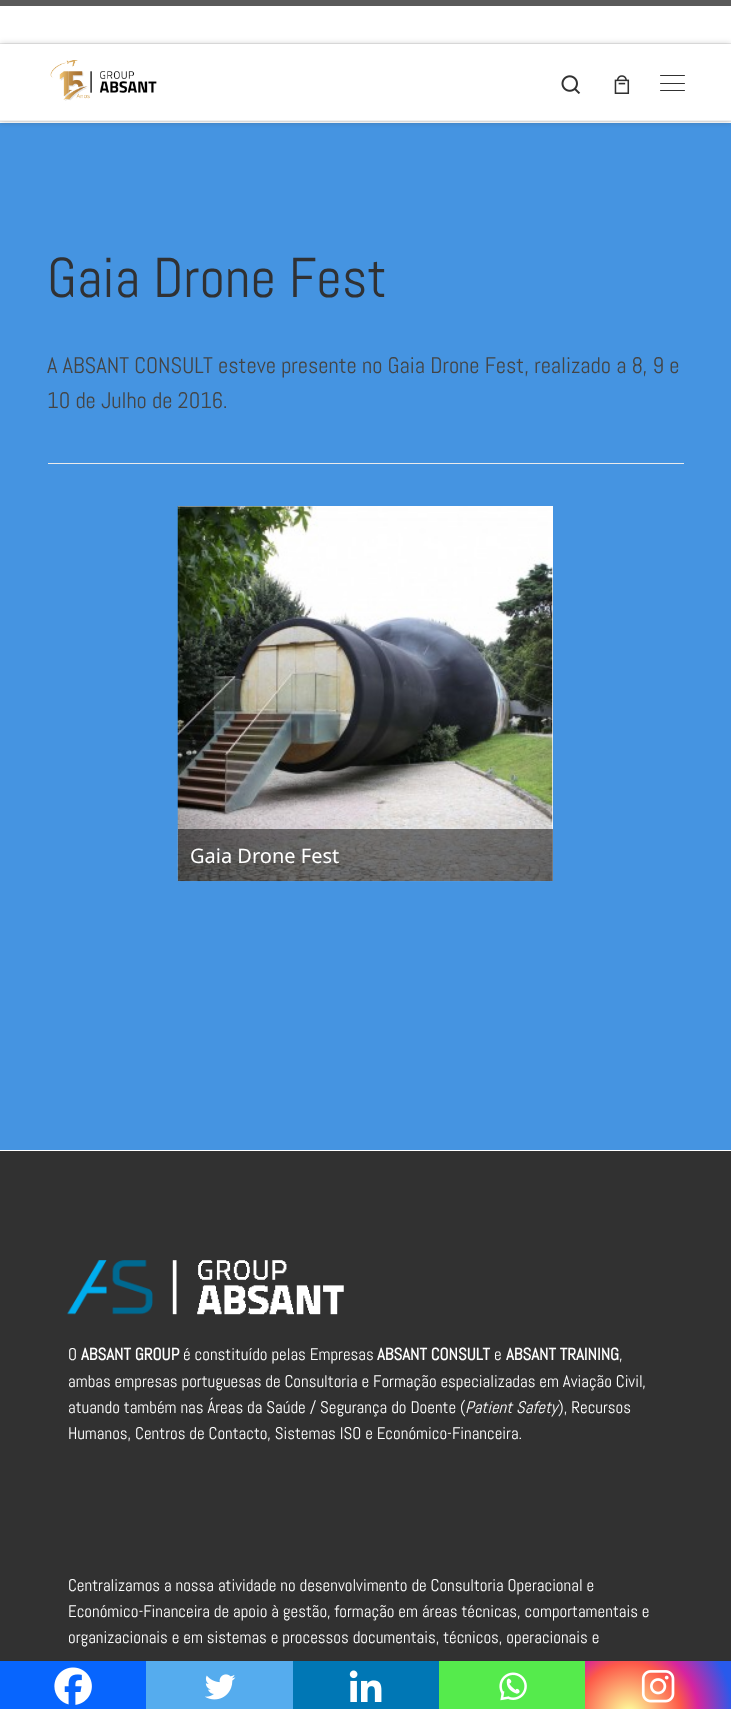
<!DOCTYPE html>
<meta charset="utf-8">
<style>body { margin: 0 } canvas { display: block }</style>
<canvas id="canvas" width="731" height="1709"></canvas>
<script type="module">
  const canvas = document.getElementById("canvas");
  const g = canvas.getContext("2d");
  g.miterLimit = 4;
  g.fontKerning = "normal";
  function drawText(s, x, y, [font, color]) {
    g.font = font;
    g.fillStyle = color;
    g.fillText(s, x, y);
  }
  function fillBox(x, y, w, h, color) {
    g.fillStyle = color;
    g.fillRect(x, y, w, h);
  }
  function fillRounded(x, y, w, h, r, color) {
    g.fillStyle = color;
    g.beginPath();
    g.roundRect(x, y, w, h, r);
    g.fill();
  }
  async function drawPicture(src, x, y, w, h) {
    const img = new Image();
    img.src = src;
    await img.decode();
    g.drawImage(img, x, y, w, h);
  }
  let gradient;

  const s1 = ["56px Abel", "#303133"];
  const s2 = ["22.5px Abel", "#444444"];
  const s3 = ["20px Noto Sans", "#FFFFFF"];
  const s4 = ["16.9px Abel", "#FFFFFF"];
  const s5 = ["bold 16.9px Abel", "#FFFFFF"];
  const s6 = ["italic 16.9px Abel", "#FFFFFF"];

  fillBox(0, 0, 731, 1709, "#FFFFFF");
  fillBox(0, 123, 731, 1027, "#4594E1");
  g.fillStyle = "rgba(102, 102, 102, 0.08)";
  g.filter = "blur(1px)";
  g.beginPath();
  g.rect(0, 3, 731, 122);
  g.fill();
  g.filter = "none";
  fillBox(0, 6, 731, 117, "#FFFFFF");
  fillBox(0, 0, 731, 6, "#5A5A5A");
  fillBox(0, 121, 731, 1, "#ECECEC");
  fillBox(0, 121, 731, 1, "rgba(255, 255, 255, 0.15)");
  fillBox(0, 43, 731, 1, "#ECECEC");
  g.save();
  g.beginPath();
  g.moveTo(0, 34);
  g.lineTo(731, 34);
  g.lineTo(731, 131);
  g.lineTo(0, 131);
  g.closePath();
  g.moveTo(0, 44);
  g.lineTo(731, 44);
  g.lineTo(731, 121);
  g.lineTo(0, 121);
  g.closePath();
  g.clip("evenodd");
  g.fillStyle = "rgba(0, 0, 0, 0.2)";
  g.filter = "blur(3px)";
  g.beginPath();
  g.rect(0, 44, 731, 77);
  g.fill();
  g.filter = "none";
  g.restore();
  await drawPicture("pic1.png", 50, 60, 107, 41);
  await drawPicture("pic2.png", 561, 75, 20, 19);
  await drawPicture("pic3.png", 614, 75, 16, 19);
  fillRounded(660, 75, 25, 1, 0.5, "#313131");
  fillRounded(660, 83, 25, 1, 0.5, "#313131");
  fillRounded(660, 90, 25, 1, 0.5, "#313131");
  fillBox(0, 120, 731, 1, "#F0F0F0");
  drawText("Gaia Drone Fest", 47, 297, s1);
  drawText("A ABSANT CONSULT esteve presente no Gaia Drone Fest, realizado a 8, 9 e", 47, 373, s2);
  drawText("10 de Julho de 2016.", 47, 408, s2);
  fillBox(48, 463, 636, 1, "#EBEBEB");
  fillBox(178, 506, 375, 375, "#FFFFFF");
  await drawPicture("pic4.png", 177, 506, 376, 376);
  fillBox(178, 829, 375, 52, "rgba(0, 0, 0, 0.5)");
  drawText("Gaia Drone Fest", 190, 863, s3);
  fillBox(0, 1661, 146, 48, "#0765FE");
  await drawPicture("pic5.png", 54, 1667, 38, 38);
  fillBox(146, 1661, 147, 48, "#55ACEE");
  await drawPicture("pic6.png", 205, 1674, 31, 26);
  fillBox(293, 1661, 146, 48, "#0077B5");
  await drawPicture("pic7.png", 349, 1670, 33, 32);
  fillBox(439, 1661, 146, 48, "#55EB4C");
  await drawPicture("pic8.png", 499, 1672, 28, 29);
  gradient = g.createRadialGradient(629, 1715, 0, 629, 1715, 116);
  gradient.addColorStop(0, "#FDF497");
  gradient.addColorStop(0.05, "#FDF497");
  gradient.addColorStop(0.45, "#FD5949");
  gradient.addColorStop(0.6, "#D6249F");
  gradient.addColorStop(0.9, "#285AEB");
  g.fillStyle = gradient;
  g.fillRect(585, 1661, 146, 48);
  await drawPicture("pic9.png", 641, 1670, 34, 33);
  fillBox(0, 1151, 731, 510, "#313131");
  await drawPicture("pic10.png", 67, 1260, 277, 55);
  drawText("O", 68, 1360, s4);
  drawText("ABSANT GROUP", 81, 1360, s5);
  drawText("é constituído pelas Empresas", 183, 1360, s4);
  drawText("ABSANT CONSULT", 377, 1360, s5);
  drawText("e", 494, 1360, s4);
  drawText("ABSANT TRAINING", 506, 1360, s5);
  drawText(",", 619, 1360, s4);
  drawText("ambas empresas portuguesas de Consultoria e Formação especializadas em Aviação Civil,", 68, 1387, s4);
  drawText("atuando também nas Áreas da Saúde / Segurança do Doente (", 68, 1413, s4);
  drawText("Patient Safety", 465, 1413, s6);
  drawText("), Recursos", 558, 1413, s4);
  drawText("Humanos, Centros de Contacto, Sistemas ISO e Económico-Financeira.", 68, 1439, s4);
  drawText("Centralizamos a nossa atividade no desenvolvimento de Consultoria Operacional e", 68, 1591, s4);
  drawText("Económico-Financeira de apoio à gestão, formação em áreas técnicas, comportamentais e", 68, 1617, s4);
  drawText("organizacionais e em sistemas e processos documentais, técnicos, operacionais e", 68, 1643, s4);
</script>
